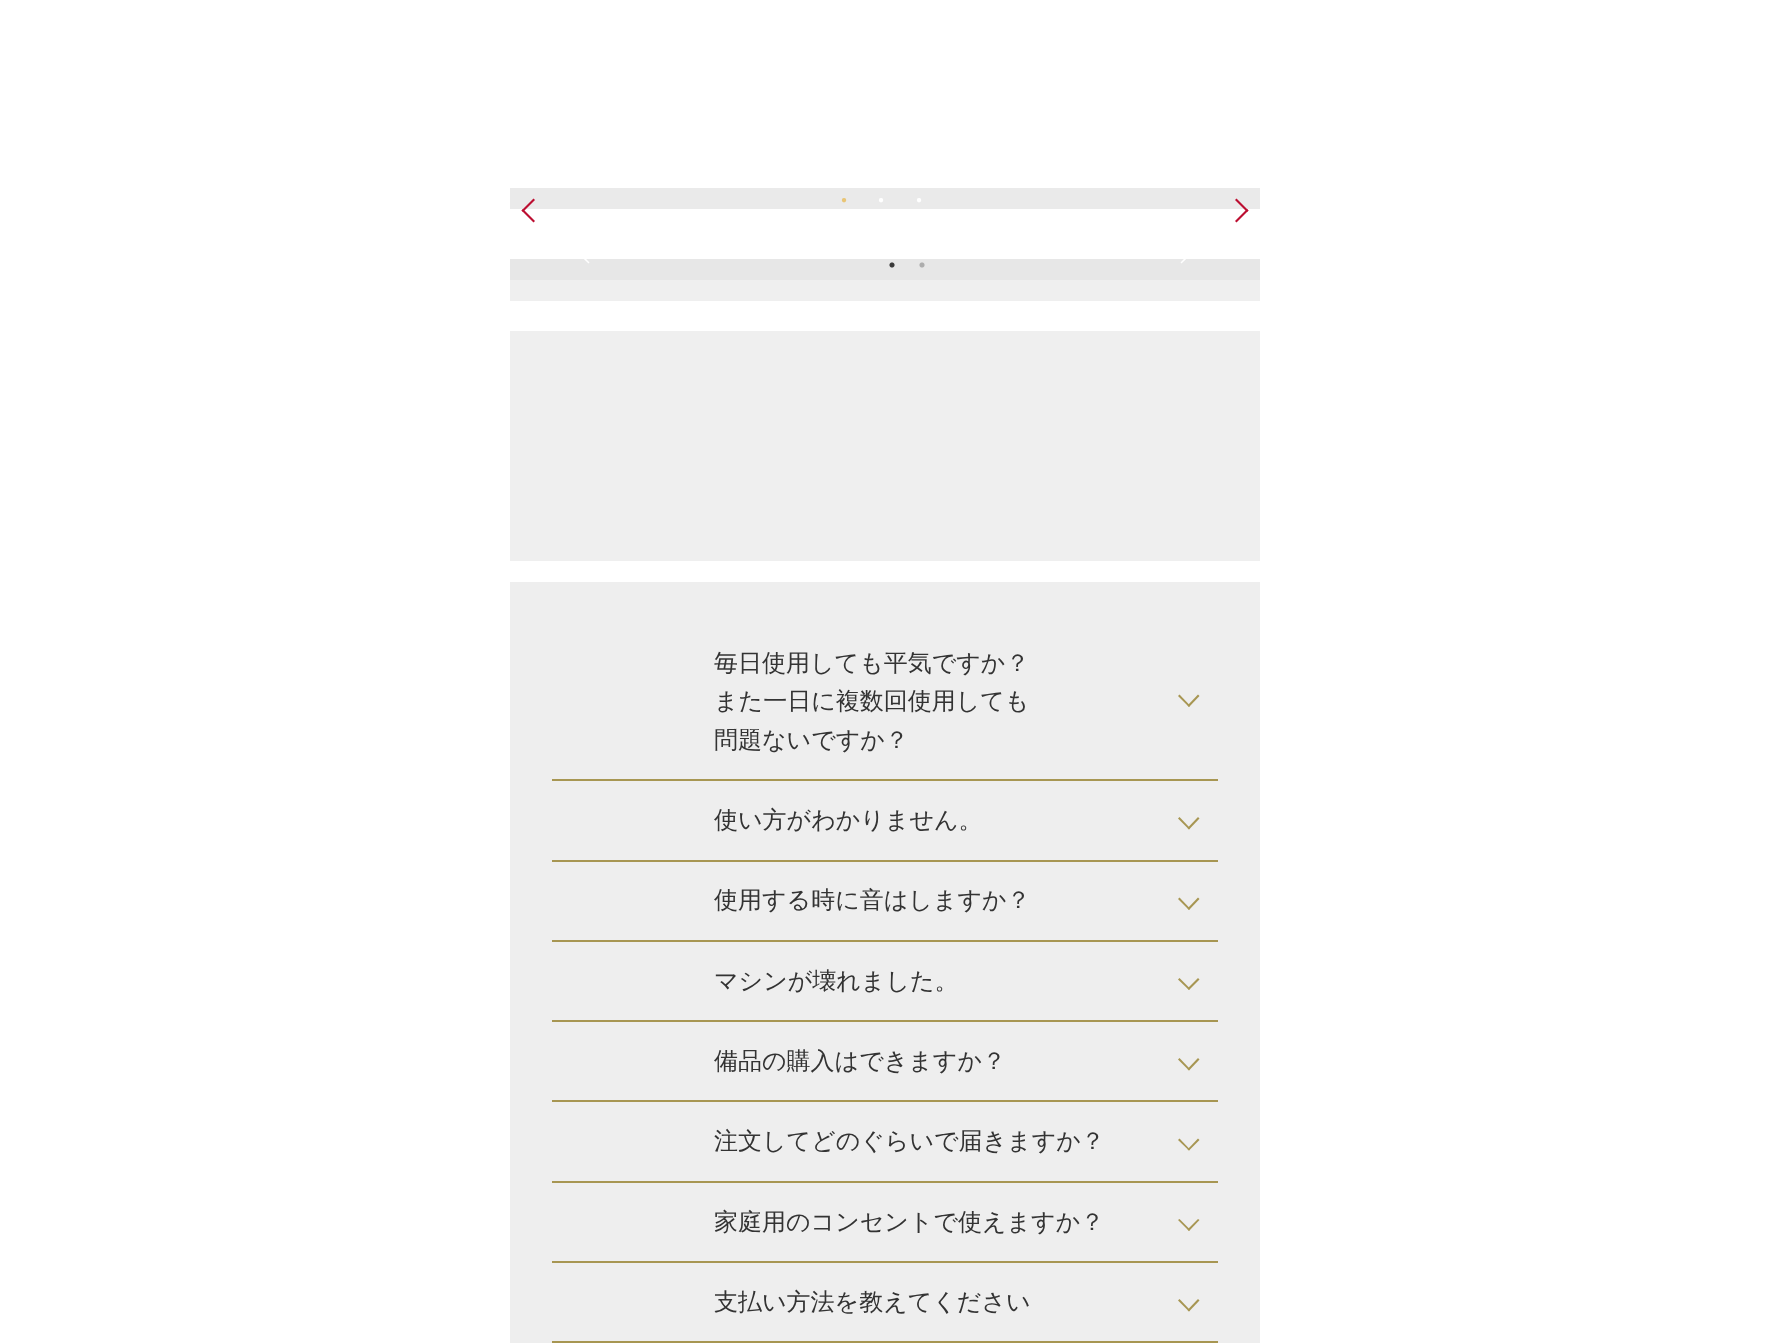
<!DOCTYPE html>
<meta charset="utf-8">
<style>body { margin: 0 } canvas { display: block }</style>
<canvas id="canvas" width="1770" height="1343"></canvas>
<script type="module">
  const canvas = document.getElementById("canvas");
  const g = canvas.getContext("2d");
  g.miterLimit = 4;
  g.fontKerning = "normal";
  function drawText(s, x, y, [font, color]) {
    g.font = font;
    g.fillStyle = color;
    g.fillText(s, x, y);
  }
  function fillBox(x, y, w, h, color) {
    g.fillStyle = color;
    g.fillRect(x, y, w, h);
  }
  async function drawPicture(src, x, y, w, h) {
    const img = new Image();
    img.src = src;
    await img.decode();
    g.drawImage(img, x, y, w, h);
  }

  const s1 = ["10px Liberation Serif", "#E9C576"];
  const s2 = ["10px Liberation Serif", "#FFFFFF"];
  const s3 = ["500 24px WenQuanYi Zen Hei", "#333333"];

  fillBox(0, 0, 1770, 1343, "#FFFFFF");
  fillBox(510, 188, 750, 21, "#EAEAEA");
  g.fillStyle = "#BC0E31";
  g.beginPath();
  g.moveTo(535, 221);
  g.lineTo(533.5, 222.5);
  g.lineTo(521.5, 210.5);
  g.lineTo(523, 209);
  g.closePath();
  g.fill();
  g.beginPath();
  g.moveTo(535, 200);
  g.lineTo(523, 212);
  g.lineTo(521.5, 210.5);
  g.lineTo(533.5, 198.5);
  g.closePath();
  g.fill();
  drawText("●", 841, 203, s1);
  drawText("●", 878, 203, s2);
  drawText("●", 916, 203, s2);
  g.fillStyle = "#BC0E31";
  g.beginPath();
  g.moveTo(1235, 200);
  g.lineTo(1236.5, 198.5);
  g.lineTo(1248.5, 210.5);
  g.lineTo(1247, 212);
  g.closePath();
  g.fill();
  g.beginPath();
  g.moveTo(1235, 221);
  g.lineTo(1247, 209);
  g.lineTo(1248.5, 210.5);
  g.lineTo(1236.5, 222.5);
  g.closePath();
  g.fill();
  fillBox(510, 259, 750, 21, "#E7E7E7");
  g.fillStyle = "#FFFFFF";
  g.beginPath();
  g.moveTo(589.5, 262.5);
  g.lineTo(588.5, 263.5);
  g.lineTo(575, 250.5);
  g.lineTo(576.5, 249);
  g.closePath();
  g.fill();
  g.beginPath();
  g.moveTo(1180.5, 262.5);
  g.lineTo(1193.5, 249);
  g.lineTo(1195, 250.5);
  g.lineTo(1181.5, 263.5);
  g.closePath();
  g.fill();
  await drawPicture("pic1.png", 889, 262, 6, 6);
  await drawPicture("pic2.png", 919, 262, 6, 6);
  fillBox(510, 280, 750, 21, "#EFEFEF");
  fillBox(510, 331, 750, 230, "#EFEFEF");
  fillBox(510, 582, 750, 761, "#EEEEEE");
  fillBox(552, 779, 666, 2, "#A79652");
  drawText("毎日使用しても平気ですか？", 714, 671, s3);
  drawText("また一日に複数回使用しても", 714, 709, s3);
  drawText("問題ないですか？", 714, 748, s3);
  g.fillStyle = "#A79652";
  g.beginPath();
  g.moveTo(1198, 694.5);
  g.lineTo(1199.5, 696);
  g.lineTo(1189, 707);
  g.lineTo(1187.5, 705.5);
  g.closePath();
  g.fill();
  g.beginPath();
  g.moveTo(1179.5, 694.5);
  g.lineTo(1190, 705.5);
  g.lineTo(1189, 707);
  g.lineTo(1178, 696);
  g.closePath();
  g.fill();
  fillBox(552, 860, 666, 2, "#A79652");
  drawText("使い方がわかりません。", 714, 828, s3);
  g.fillStyle = "#A79652";
  g.beginPath();
  g.moveTo(1198, 817);
  g.lineTo(1199.5, 818.5);
  g.lineTo(1189, 829.5);
  g.lineTo(1187.5, 828);
  g.closePath();
  g.fill();
  g.beginPath();
  g.moveTo(1179.5, 817);
  g.lineTo(1190, 828);
  g.lineTo(1189, 829.5);
  g.lineTo(1178, 818.5);
  g.closePath();
  g.fill();
  fillBox(552, 940, 666, 2, "#A79652");
  drawText("使用する時に音はしますか？", 714, 908, s3);
  g.fillStyle = "#A79652";
  g.beginPath();
  g.moveTo(1198, 897.5);
  g.lineTo(1199.5, 899);
  g.lineTo(1189, 910);
  g.lineTo(1187.5, 908.5);
  g.closePath();
  g.fill();
  g.beginPath();
  g.moveTo(1179.5, 897.5);
  g.lineTo(1190, 908.5);
  g.lineTo(1189, 910);
  g.lineTo(1178, 899);
  g.closePath();
  g.fill();
  fillBox(552, 1020, 666, 2, "#A79652");
  drawText("マシンが壊れました。", 714, 989, s3);
  g.fillStyle = "#A79652";
  g.beginPath();
  g.moveTo(1198, 978);
  g.lineTo(1199.5, 979.5);
  g.lineTo(1189, 990);
  g.lineTo(1187.5, 988.5);
  g.closePath();
  g.fill();
  g.beginPath();
  g.moveTo(1179.5, 978);
  g.lineTo(1190, 988.5);
  g.lineTo(1189, 990);
  g.lineTo(1178, 979.5);
  g.closePath();
  g.fill();
  fillBox(552, 1100, 666, 2, "#A79652");
  drawText("備品の購入はできますか？", 714, 1069, s3);
  g.fillStyle = "#A79652";
  g.beginPath();
  g.moveTo(1198, 1058);
  g.lineTo(1199.5, 1059.5);
  g.lineTo(1189, 1070.5);
  g.lineTo(1187.5, 1069);
  g.closePath();
  g.fill();
  g.beginPath();
  g.moveTo(1179.5, 1058);
  g.lineTo(1190, 1069);
  g.lineTo(1189, 1070.5);
  g.lineTo(1178, 1059.5);
  g.closePath();
  g.fill();
  fillBox(552, 1181, 666, 2, "#A79652");
  drawText("注文してどのぐらいで届きますか？", 714, 1149, s3);
  g.fillStyle = "#A79652";
  g.beginPath();
  g.moveTo(1198, 1138.5);
  g.lineTo(1199.5, 1140);
  g.lineTo(1189, 1150.5);
  g.lineTo(1187.5, 1149.5);
  g.closePath();
  g.fill();
  g.beginPath();
  g.moveTo(1179.5, 1138.5);
  g.lineTo(1190, 1149.5);
  g.lineTo(1189, 1150.5);
  g.lineTo(1178, 1140);
  g.closePath();
  g.fill();
  fillBox(552, 1261, 666, 2, "#A79652");
  drawText("家庭用のコンセントで使えますか？", 714, 1230, s3);
  g.fillStyle = "#A79652";
  g.beginPath();
  g.moveTo(1198, 1219);
  g.lineTo(1199.5, 1220);
  g.lineTo(1189, 1231);
  g.lineTo(1187.5, 1229.5);
  g.closePath();
  g.fill();
  g.beginPath();
  g.moveTo(1179.5, 1219);
  g.lineTo(1190, 1229.5);
  g.lineTo(1189, 1231);
  g.lineTo(1178, 1220);
  g.closePath();
  g.fill();
  fillBox(552, 1341, 666, 2, "#A79652");
  drawText("支払い方法を教えてください", 714, 1310, s3);
  g.fillStyle = "#A79652";
  g.beginPath();
  g.moveTo(1198, 1299);
  g.lineTo(1199.5, 1300.5);
  g.lineTo(1189, 1311.5);
  g.lineTo(1187.5, 1310);
  g.closePath();
  g.fill();
  g.beginPath();
  g.moveTo(1179.5, 1299);
  g.lineTo(1190, 1310);
  g.lineTo(1189, 1311.5);
  g.lineTo(1178, 1300.5);
  g.closePath();
  g.fill();
</script>
